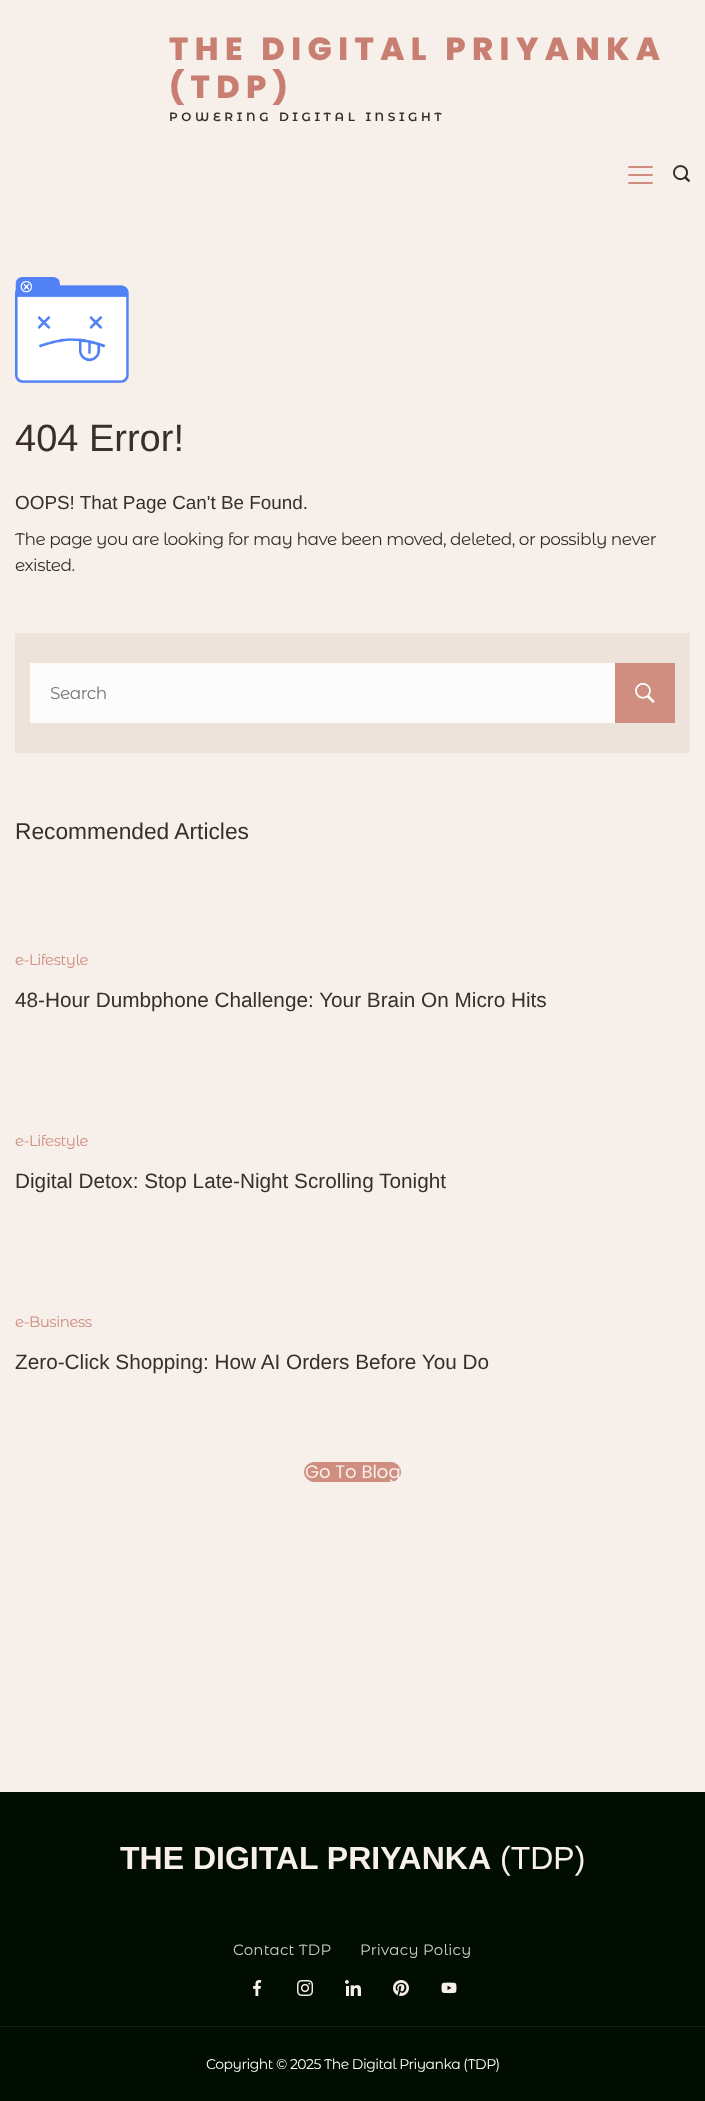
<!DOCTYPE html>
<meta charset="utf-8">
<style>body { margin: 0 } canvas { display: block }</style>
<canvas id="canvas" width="705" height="2101"></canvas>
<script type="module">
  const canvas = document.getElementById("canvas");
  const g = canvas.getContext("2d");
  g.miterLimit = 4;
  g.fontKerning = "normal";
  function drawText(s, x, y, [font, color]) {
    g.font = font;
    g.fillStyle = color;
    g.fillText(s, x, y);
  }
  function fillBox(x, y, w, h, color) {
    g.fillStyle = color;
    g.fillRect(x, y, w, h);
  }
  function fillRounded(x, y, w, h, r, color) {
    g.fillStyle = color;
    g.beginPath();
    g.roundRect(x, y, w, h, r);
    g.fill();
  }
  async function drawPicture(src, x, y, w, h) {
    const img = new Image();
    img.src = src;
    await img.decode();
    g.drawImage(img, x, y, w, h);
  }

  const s1 = ["800 32px Poppins", "#C87F72"];
  const s2 = ["600 12px Montserrat Alternates", "#3A2E2A"];
  const s3 = ["38px Liberation Sans", "#3A2E2A"];
  const s4 = ["18.9px Liberation Sans", "#3A2E2A"];
  const s5 = ["17px Montserrat Alternates", "#3A2E2A"];
  const s6 = ["17px Montserrat Alternates", "#757575"];
  const s7 = ["22.75px Liberation Sans", "#3A2E2A"];
  const s8 = ["15px Montserrat Alternates", "#CF8E80"];
  const s9 = ["20.75px Liberation Sans", "#3A2E2A"];
  const s10 = ["18px Poppins", "#F6EFEA"];
  const s11 = ["bold 32px Liberation Sans", "#F6EFEA"];
  const s12 = ["32px Liberation Sans", "#F6EFEA"];
  const s13 = ["15px Montserrat Alternates", "#CCCCCC"];
  const s14 = ["14px Montserrat Alternates", "#FFFFFF"];

  fillBox(0, 0, 705, 2101, "#F6EFEA");
  g.letterSpacing = "6.4px";
  drawText("THE DIGITAL PRIYANKA", 169, 60, s1);
  drawText("(TDP)", 169, 98, s1);
  g.letterSpacing = "3.6px";
  drawText("POWERING DIGITAL INSIGHT", 169, 121, s2);
  fillRounded(628, 174, 25, 2, 1, "#CF8E80");
  fillRounded(628, 166, 25, 2, 1, "#CF8E80");
  fillRounded(628, 182, 25, 2, 1, "#CF8E80");
  await drawPicture("pic1.png", 673, 165, 17, 17);
  await drawPicture("pic2.png", 15, 277, 114, 106);
  g.letterSpacing = "0px";
  drawText("404 Error!", 15, 451, s3);
  drawText("OOPS! That Page Can't Be Found.", 15, 509, s4);
  g.letterSpacing = "-0.5px";
  drawText("The page you are looking for may have been moved, deleted, or possibly never", 15, 545, s5);
  drawText("existed.", 15, 571, s5);
  fillBox(15, 633, 675, 120, "#EDE3DB");
  fillBox(30, 663, 585, 60, "#FCFCFC");
  drawText("Search", 50, 699, s6);
  fillBox(615, 663, 60, 60, "#CF8E80");
  await drawPicture("pic3.png", 635, 683, 20, 20);
  g.letterSpacing = "0px";
  drawText("Recommended Articles", 15, 839, s7);
  g.letterSpacing = "-0.5px";
  drawText("e-Lifestyle", 15, 965, s8);
  g.letterSpacing = "0px";
  drawText("48-Hour Dumbphone Challenge: Your Brain On Micro Hits", 15, 1007, s9);
  g.letterSpacing = "-0.5px";
  drawText("e-Lifestyle", 15, 1146, s8);
  g.letterSpacing = "0px";
  drawText("Digital Detox: Stop Late-Night Scrolling Tonight", 15, 1188, s9);
  g.letterSpacing = "-0.5px";
  drawText("e-Business", 15, 1327, s8);
  g.letterSpacing = "0px";
  drawText("Zero-Click Shopping: How AI Orders Before You Do", 15, 1369, s9);
  g.fillStyle = "#CF8E80";
  g.beginPath();
  g.roundRect(304.5, 1462.5, 96, 19, 9.5);
  g.fill();
  g.strokeStyle = "#CF8E80";
  g.stroke();
  drawText("Go To Blog", 305, 1478, s10);
  fillBox(0, 1792, 705, 234, "#010D00");
  drawText("THE DIGITAL PRIYANKA", 120, 1869, s11);
  drawText("(TDP)", 500, 1869, s12);
  g.letterSpacing = "0.25px";
  drawText("Contact TDP", 233, 1955, s13);
  drawText("Privacy Policy", 360, 1955, s13);
  await drawPicture("pic4.png", 253, 1980, 9, 16);
  await drawPicture("pic5.png", 297, 1980, 16, 16);
  await drawPicture("pic6.png", 345, 1980, 16, 16);
  await drawPicture("pic7.png", 393, 1980, 16, 16);
  await drawPicture("pic8.png", 441, 1982, 16, 12);
  fillBox(0, 2027, 705, 74, "#010D00");
  fillBox(0, 2026, 705, 1, "#152014");
  g.letterSpacing = "-0.5px";
  drawText("Copyright © 2025 The Digital Priyanka (TDP)", 206, 2069, s14);
</script>
